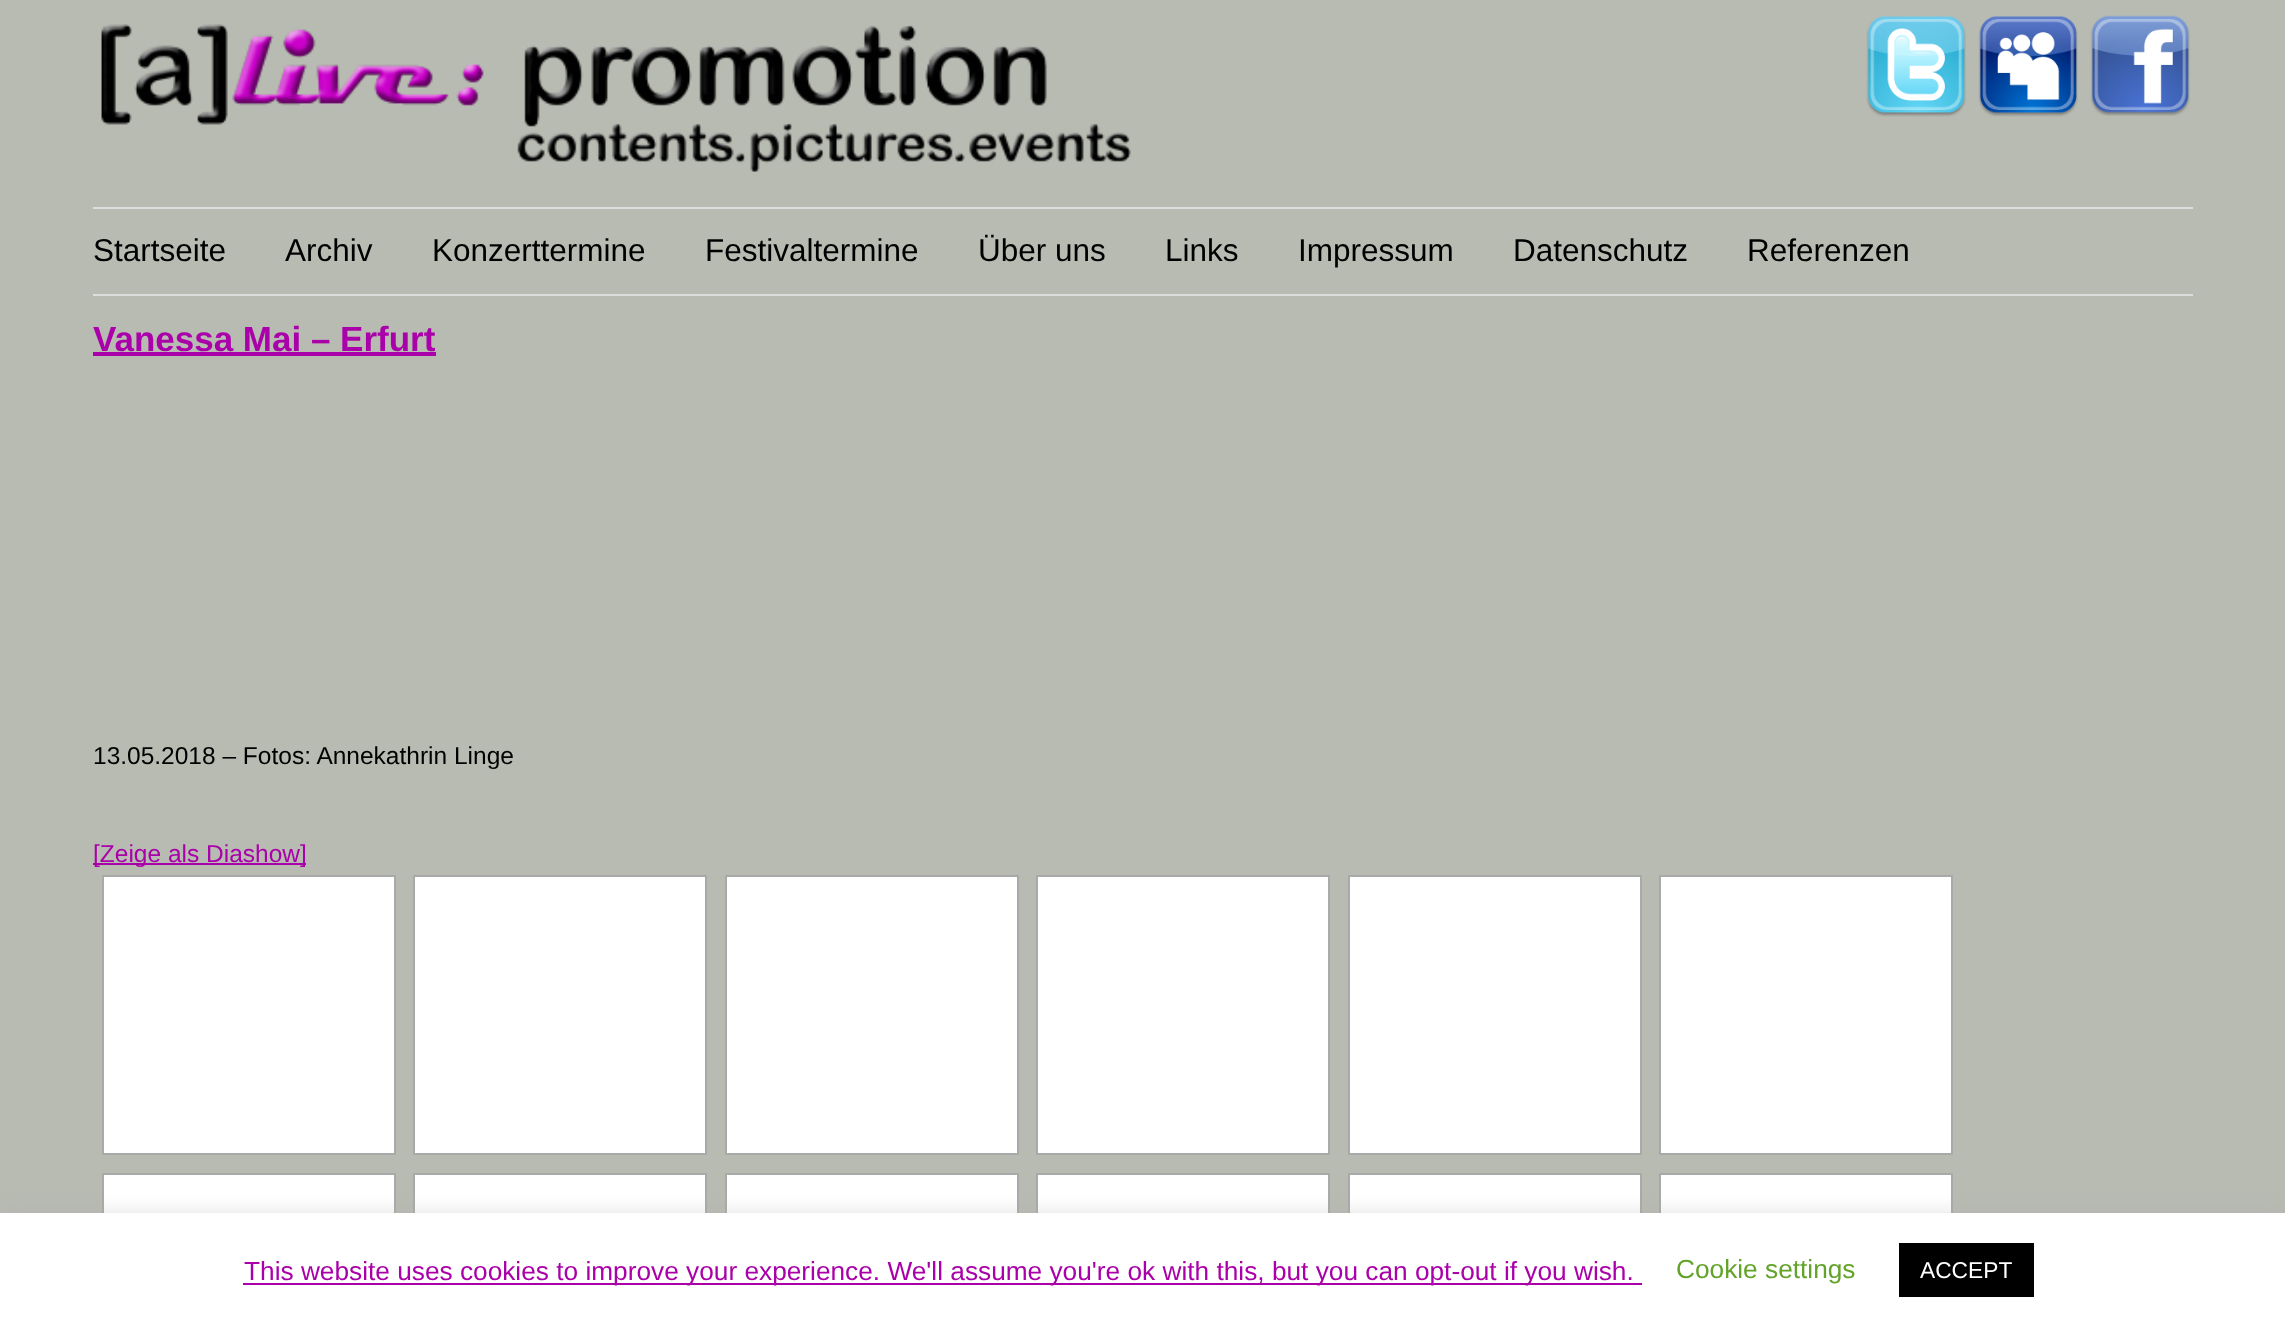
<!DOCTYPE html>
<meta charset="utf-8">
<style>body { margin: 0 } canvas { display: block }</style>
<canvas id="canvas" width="2285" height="1325"></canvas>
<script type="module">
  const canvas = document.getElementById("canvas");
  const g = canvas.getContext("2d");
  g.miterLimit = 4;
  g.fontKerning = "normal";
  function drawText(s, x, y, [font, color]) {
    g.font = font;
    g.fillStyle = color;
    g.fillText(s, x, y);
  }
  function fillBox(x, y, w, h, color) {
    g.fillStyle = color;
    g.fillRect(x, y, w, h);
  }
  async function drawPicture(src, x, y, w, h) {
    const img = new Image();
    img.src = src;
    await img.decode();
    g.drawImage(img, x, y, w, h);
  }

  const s1 = ["31.5px Liberation Sans", "#000000"];
  const s2 = ["bold 35px Liberation Sans", "#AA00AA"];
  const s3 = ["24.5px Liberation Sans", "#000000"];
  const s4 = ["24.5px Liberation Sans", "#AA00AA"];
  const s5 = ["26.25px Liberation Sans", "#AA00AA"];
  const s6 = ["26.25px Liberation Sans", "#62A329"];
  const s7 = ["22.75px Liberation Sans", "#FFFFFF"];

  fillBox(0, 0, 2285, 1325, "#B8BBB2");
  await drawPicture("pic1.png", 101, 24, 1030, 148);
  await drawPicture("pic2.png", 1866, 16, 100, 101);
  await drawPicture("pic3.png", 1978, 16, 100, 101);
  await drawPicture("pic4.png", 2090, 15, 100, 101);
  fillBox(93, 207, 2100, 2, "#DDDDDD");
  fillBox(93, 294, 2100, 2, "#DDDDDD");
  drawText("Startseite", 93, 261, s1);
  drawText("Archiv", 285, 261, s1);
  drawText("Konzerttermine", 432, 261, s1);
  drawText("Festivaltermine", 705, 261, s1);
  drawText("Über uns", 978, 261, s1);
  drawText("Links", 1165, 261, s1);
  drawText("Impressum", 1298, 261, s1);
  drawText("Datenschutz", 1513, 261, s1);
  drawText("Referenzen", 1747, 261, s1);
  drawText("Vanessa Mai – Erfurt", 93, 351, s2);
  fillBox(93, 352, 343, 4, "#AA00AA");
  drawText("13.05.2018 – Fotos: Annekathrin Linge", 93, 764, s3);
  fillBox(93, 863, 213, 2, "#AA00AA");
  drawText("[Zeige als Diashow]", 93, 862, s4);
  g.fillStyle = "#FFFFFF";
  g.beginPath();
  g.rect(103, 876, 292, 278);
  g.fill();
  g.strokeStyle = "#A9A9A9";
  g.lineWidth = 2;
  g.stroke();
  g.beginPath();
  g.rect(414, 876, 292, 278);
  g.fill();
  g.stroke();
  g.beginPath();
  g.rect(726, 876, 292, 278);
  g.fill();
  g.stroke();
  g.beginPath();
  g.rect(1037, 876, 292, 278);
  g.fill();
  g.stroke();
  g.beginPath();
  g.rect(1349, 876, 292, 278);
  g.fill();
  g.stroke();
  g.beginPath();
  g.rect(1660, 876, 292, 278);
  g.fill();
  g.stroke();
  fillBox(104, 1175, 290, 38, "#FFFFFF");
  g.strokeRect(103, 1174, 292, 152);
  fillBox(415, 1175, 290, 38, "#FFFFFF");
  g.strokeRect(414, 1174, 292, 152);
  fillBox(727, 1175, 290, 38, "#FFFFFF");
  g.strokeRect(726, 1174, 292, 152);
  fillBox(1038, 1175, 290, 38, "#FFFFFF");
  g.strokeRect(1037, 1174, 292, 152);
  fillBox(1350, 1175, 290, 38, "#FFFFFF");
  g.strokeRect(1349, 1174, 292, 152);
  fillBox(1661, 1175, 290, 38, "#FFFFFF");
  g.strokeRect(1660, 1174, 292, 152);
  g.fillStyle = "rgba(172, 171, 171, 0.3)";
  g.filter = "blur(9px)";
  g.beginPath();
  g.rect(0, 1211, 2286, 114);
  g.fill();
  g.filter = "none";
  fillBox(0, 1213, 2285, 112, "#FFFFFF");
  fillBox(243, 1283, 1399, 2, "#AA00AA");
  drawText("This website uses cookies to improve your experience. We'll assume you're ok with this, but you can opt-out if you wish.", 244, 1280, s5);
  drawText("Cookie settings", 1676, 1278, s6);
  fillBox(1899, 1243, 135, 54, "#000000");
  drawText("ACCEPT", 1920, 1278, s7);
</script>
